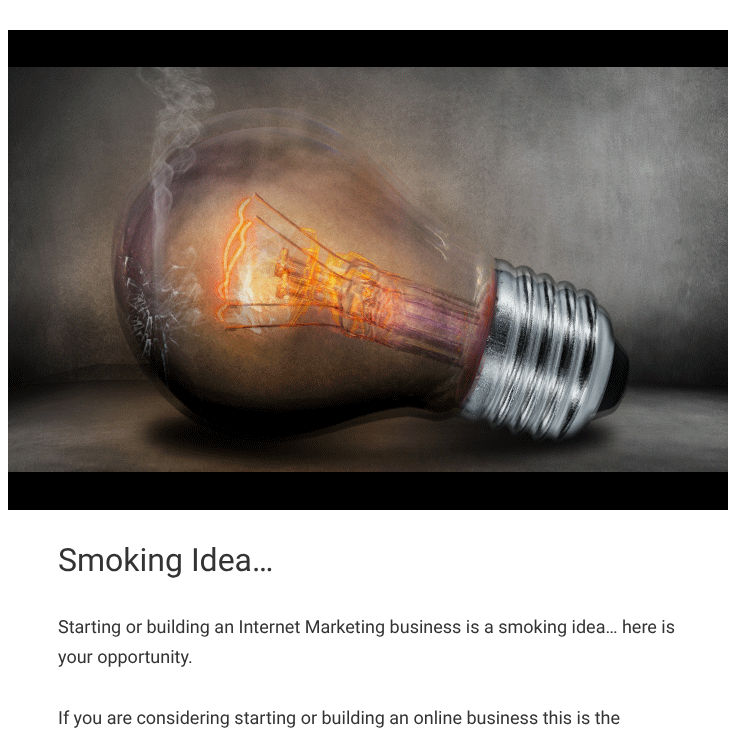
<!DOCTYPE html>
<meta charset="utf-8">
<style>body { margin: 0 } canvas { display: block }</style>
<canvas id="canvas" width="736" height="740"></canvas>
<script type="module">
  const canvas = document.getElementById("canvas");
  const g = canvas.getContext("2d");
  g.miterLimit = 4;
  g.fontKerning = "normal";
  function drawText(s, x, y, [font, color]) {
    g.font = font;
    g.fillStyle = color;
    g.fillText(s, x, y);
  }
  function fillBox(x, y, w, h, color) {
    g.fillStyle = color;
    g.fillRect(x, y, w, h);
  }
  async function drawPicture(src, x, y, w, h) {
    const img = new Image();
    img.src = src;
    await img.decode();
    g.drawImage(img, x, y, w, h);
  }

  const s1 = ["32px Roboto", "#333333"];
  const s2 = ["18px Roboto", "#333333"];

  fillBox(0, 0, 736, 740, "#FFFFFF");
  await drawPicture("pic1.png", 8, 30, 720, 480);
  drawText("Smoking Idea…", 58, 571, s1);
  drawText("Starting or building an Internet Marketing business is a smoking idea… here is", 58, 633, s2);
  drawText("your opportunity.", 58, 663, s2);
  drawText("If you are considering starting or building an online business this is the", 58, 724, s2);
</script>
